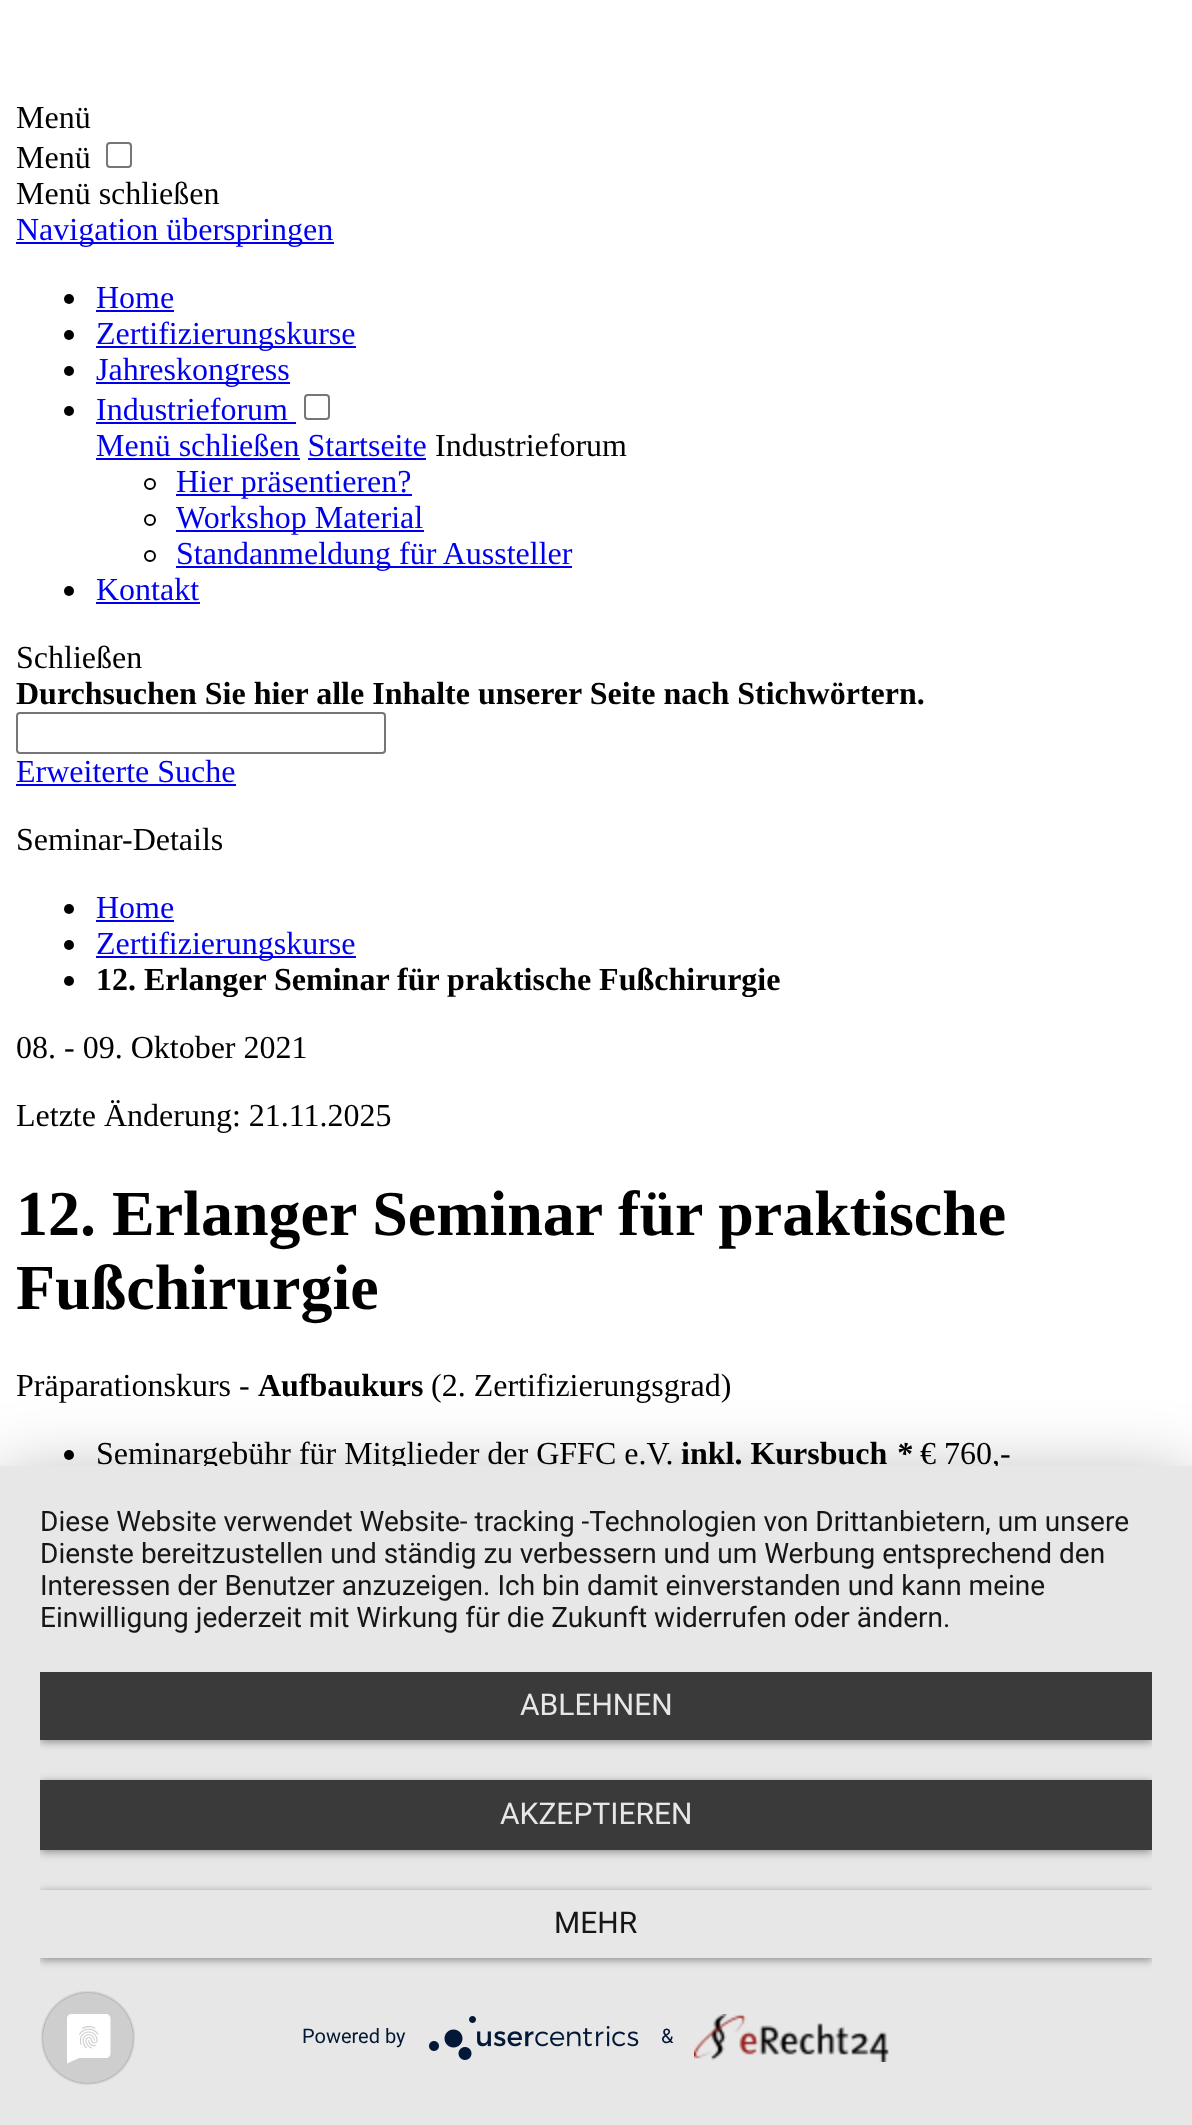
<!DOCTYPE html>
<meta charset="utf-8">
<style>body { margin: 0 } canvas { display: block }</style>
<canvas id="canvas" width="1192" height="2125"></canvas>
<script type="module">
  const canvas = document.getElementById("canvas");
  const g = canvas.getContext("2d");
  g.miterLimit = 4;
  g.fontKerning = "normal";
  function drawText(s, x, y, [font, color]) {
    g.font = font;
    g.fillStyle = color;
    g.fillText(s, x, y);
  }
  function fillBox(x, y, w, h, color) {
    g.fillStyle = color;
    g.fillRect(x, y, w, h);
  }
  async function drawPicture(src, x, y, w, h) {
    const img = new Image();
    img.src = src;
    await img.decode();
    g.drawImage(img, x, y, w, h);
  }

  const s1 = ["32px Liberation Serif", "#000000"];
  const s2 = ["32px Liberation Serif", "#0000EE"];
  const s3 = ["bold 32px Liberation Serif", "#000000"];
  const s4 = ["bold 64px Liberation Serif", "#000000"];
  const s5 = ["italic bold 32px Liberation Serif", "#000000"];
  const s6 = ["28px Roboto", "#161616"];
  const s7 = ["30px Roboto", "#E7E7E7"];
  const s8 = ["30px Roboto", "#161616"];
  const s9 = ["20px Roboto", "#021836"];

  fillBox(0, 0, 1192, 2125, "#FFFFFF");
  drawText("Menü", 16, 128, s1);
  drawText("Menü", 16, 168, s1);
  g.beginPath();
  g.roundRect(107, 143, 24, 24, 3);
  g.strokeStyle = "#767676";
  g.lineWidth = 2;
  g.stroke();
  drawText("Menü schließen", 16, 204, s1);
  fillBox(16, 242, 318, 2, "#0000EE");
  drawText("Navigation überspringen", 16, 240, s2);
  g.fillStyle = "#000000";
  g.beginPath();
  g.arc(69, 299, 5, 0, Math.PI * 2);
  g.fill();
  drawText("Home", 96, 308, s2);
  fillBox(96, 310, 78, 2, "#0000EE");
  g.fillStyle = "#000000";
  g.beginPath();
  g.arc(69, 335, 5, 0, Math.PI * 2);
  g.fill();
  fillBox(96, 346, 260, 2, "#0000EE");
  drawText("Zertifizierungskurse", 96, 344, s2);
  g.fillStyle = "#000000";
  g.beginPath();
  g.arc(69, 371, 5, 0, Math.PI * 2);
  g.fill();
  fillBox(96, 382, 194, 2, "#0000EE");
  drawText("Jahreskongress", 96, 380, s2);
  g.fillStyle = "#000000";
  g.beginPath();
  g.arc(69, 411, 5, 0, Math.PI * 2);
  g.fill();
  drawText("Industrieforum", 96, 420, s2);
  fillBox(96, 422, 200, 2, "#0000EE");
  g.beginPath();
  g.roundRect(305, 395, 24, 24, 3);
  g.stroke();
  drawText("Menü schließen Startseite", 96, 456, s2);
  fillBox(96, 458, 204, 2, "#0000EE");
  fillBox(308, 458, 118, 2, "#0000EE");
  drawText("Industrieforum", 435, 456, s1);
  g.beginPath();
  g.arc(150, 484, 5, 0, Math.PI * 2);
  g.strokeStyle = "#000000";
  g.stroke();
  fillBox(176, 494, 236, 2, "#0000EE");
  drawText("Hier präsentieren?", 176, 492, s2);
  g.beginPath();
  g.arc(150, 520, 5, 0, Math.PI * 2);
  g.stroke();
  fillBox(176, 530, 248, 2, "#0000EE");
  drawText("Workshop Material", 176, 528, s2);
  g.beginPath();
  g.arc(150, 556, 5, 0, Math.PI * 2);
  g.stroke();
  fillBox(176, 566, 396, 2, "#0000EE");
  drawText("Standanmeldung für Aussteller", 176, 564, s2);
  g.fillStyle = "#000000";
  g.beginPath();
  g.arc(69, 591, 5, 0, Math.PI * 2);
  g.fill();
  drawText("Kontakt", 96, 600, s2);
  fillBox(96, 602, 104, 2, "#0000EE");
  drawText("Schließen", 16, 668, s1);
  drawText("Durchsuchen Sie hier alle Inhalte unserer Seite nach Stichwörtern.", 16, 704, s3);
  g.beginPath();
  g.roundRect(17, 713, 368, 40, 3);
  g.strokeStyle = "#767676";
  g.stroke();
  drawText("Erweiterte Suche", 16, 782, s2);
  fillBox(16, 784, 220, 2, "#0000EE");
  drawText("Seminar-Details", 16, 850, s1);
  g.beginPath();
  g.arc(69, 909, 5, 0, Math.PI * 2);
  g.fill();
  drawText("Home", 96, 918, s2);
  fillBox(96, 920, 78, 2, "#0000EE");
  g.fillStyle = "#000000";
  g.beginPath();
  g.arc(69, 945, 5, 0, Math.PI * 2);
  g.fill();
  fillBox(96, 956, 260, 2, "#0000EE");
  drawText("Zertifizierungskurse", 96, 954, s2);
  g.fillStyle = "#000000";
  g.beginPath();
  g.arc(69, 981, 5, 0, Math.PI * 2);
  g.fill();
  drawText("12. Erlanger Seminar für praktische Fußchirurgie", 96, 990, s3);
  drawText("08. - 09. Oktober 2021", 16, 1058, s1);
  drawText("Letzte Änderung: 21.11.2025", 16, 1126, s1);
  drawText("12. Erlanger Seminar für praktische", 16, 1235, s4);
  drawText("Fußchirurgie", 16, 1309, s4);
  drawText("Präparationskurs -", 16, 1396, s1);
  drawText("Aufbaukurs", 258, 1396, s3);
  drawText("(2. Zertifizierungsgrad)", 431, 1396, s1);
  g.beginPath();
  g.arc(69, 1455, 5, 0, Math.PI * 2);
  g.fill();
  drawText("Seminargebühr für Mitglieder der GFFC e.V.", 96, 1464, s1);
  drawText("inkl. Kursbuch", 681, 1464, s3);
  drawText("*", 896, 1464, s5);
  drawText("€ 760,-", 920, 1464, s1);
  g.fillStyle = "rgba(0, 0, 0, 0.3)";
  g.filter = "blur(36px)";
  g.beginPath();
  g.rect(0, 1478, 1192, 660);
  g.fill();
  g.filter = "none";
  fillBox(0, 1466, 1192, 659, "#E7E7E7");
  drawText("Diese Website verwendet Website- tracking -Technologien von Drittanbietern, um unsere", 40, 1531, s6);
  drawText("Dienste bereitzustellen und ständig zu verbessern und um Werbung entsprechend den", 40, 1563, s6);
  drawText("Interessen der Benutzer anzuzeigen. Ich bin damit einverstanden und kann meine", 40, 1595, s6);
  drawText("Einwilligung jederzeit mit Wirkung für die Zukunft widerrufen oder ändern.", 40, 1627, s6);
  g.save();
  g.beginPath();
  g.rect(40, 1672, 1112, 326);
  g.clip();
  g.fillStyle = "rgba(0, 0, 0, 0.4)";
  g.filter = "blur(4px)";
  g.beginPath();
  g.rect(40, 1674, 1112, 68);
  g.fill();
  g.filter = "none";
  g.restore();
  fillBox(40, 1672, 1112, 68, "#3A3A3A");
  drawText("ABLEHNEN", 520, 1715, s7);
  g.save();
  g.beginPath();
  g.rect(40, 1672, 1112, 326);
  g.clip();
  g.fillStyle = "rgba(0, 0, 0, 0.4)";
  g.filter = "blur(4px)";
  g.beginPath();
  g.rect(40, 1782, 1112, 70);
  g.fill();
  g.filter = "none";
  g.restore();
  fillBox(40, 1780, 1112, 70, "#3A3A3A");
  drawText("AKZEPTIEREN", 500, 1824, s7);
  g.save();
  g.beginPath();
  g.rect(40, 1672, 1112, 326);
  g.clip();
  g.beginPath();
  g.moveTo(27, 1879);
  g.lineTo(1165, 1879);
  g.lineTo(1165, 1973);
  g.lineTo(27, 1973);
  g.closePath();
  g.moveTo(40, 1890);
  g.lineTo(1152, 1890);
  g.lineTo(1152, 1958);
  g.lineTo(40, 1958);
  g.closePath();
  g.clip("evenodd");
  g.fillStyle = "rgba(0, 0, 0, 0.4)";
  g.filter = "blur(4px)";
  g.beginPath();
  g.rect(40, 1892, 1112, 68);
  g.fill();
  g.filter = "none";
  g.restore();
  drawText("MEHR", 554, 1933, s8);
  drawText("Powered by", 302, 2043, s9);
  await drawPicture("pic1.png", 429, 2016, 210, 44);
  drawText("&", 661, 2043, s9);
  await drawPicture("pic2.png", 694, 2014, 195, 48);
  await drawPicture("pic3.png", 41, 1991, 94, 94);
</script>
